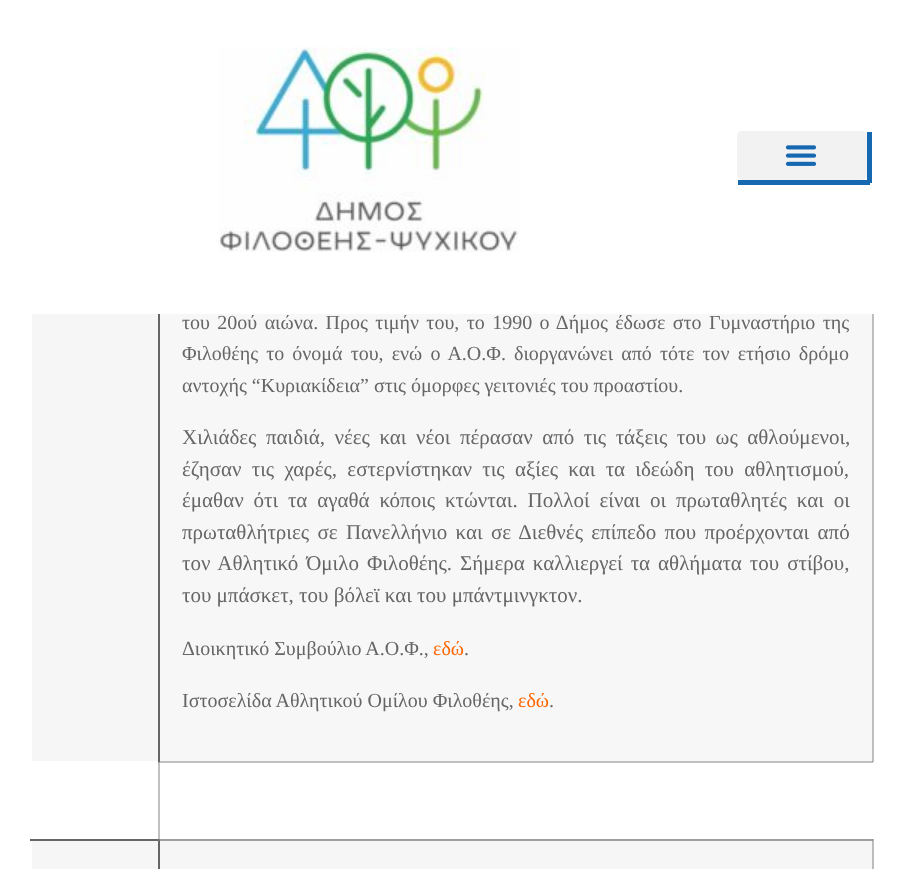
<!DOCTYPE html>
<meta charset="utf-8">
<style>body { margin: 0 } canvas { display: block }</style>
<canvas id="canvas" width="902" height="869"></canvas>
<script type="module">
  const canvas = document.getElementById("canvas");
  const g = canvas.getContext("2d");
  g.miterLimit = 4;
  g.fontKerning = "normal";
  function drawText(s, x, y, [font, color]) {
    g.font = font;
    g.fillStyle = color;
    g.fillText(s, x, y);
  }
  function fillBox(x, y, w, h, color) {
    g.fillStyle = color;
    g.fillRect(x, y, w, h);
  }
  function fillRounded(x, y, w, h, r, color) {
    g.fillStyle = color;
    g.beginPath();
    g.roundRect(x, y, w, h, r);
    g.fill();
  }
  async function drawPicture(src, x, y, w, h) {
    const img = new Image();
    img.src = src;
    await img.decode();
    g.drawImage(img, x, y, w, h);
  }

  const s1 = ["20px Liberation Serif", "#666666"];
  const s2 = ["21px Liberation Serif", "#666666"];
  const s3 = ["20px Liberation Serif", "#FF6600"];

  fillBox(0, 0, 902, 869, "#FFFFFF");
  fillBox(158, 761, 715, 2, "#C0C0C0");
  fillBox(873, 314, 1, 448, "#C0C0C0");
  fillBox(872, 761, 1, 1, "#A0A0A0");
  fillBox(158, 761, 2, 79, "#C0C0C0");
  fillBox(158, 762, 2, 1, "#A0A0A0");
  fillBox(873, 839, 1, 30, "#C0C0C0");
  await drawPicture("pic1.png", 218, 47, 302, 205);
  fillBox(867, 132, 5, 51, "#1668B1");
  fillBox(738, 180, 132, 5, "#1668B1");
  fillRounded(737, 131, 130, 49, 5, "#F2F2F2");
  await drawPicture("pic2.png", 785, 145, 32, 21);
  fillBox(32, 314, 126, 447, "#F6F6F6");
  fillBox(158, 314, 2, 448, "#666666");
  fillBox(160, 314, 712, 447, "#F7F7F7");
  fillBox(872, 314, 1, 447, "#BCBCBC");
  g.wordSpacing = "2.4px";
  drawText("του 20ού αιώνα. Προς τιμήν του, το 1990 ο Δήμος έδωσε στο Γυμναστήριο της", 182, 329, s1);
  g.wordSpacing = "3.1px";
  drawText("Φιλοθέης το όνομά του, ενώ ο Α.Ο.Φ. διοργανώνει από τότε τον ετήσιο δρόμο", 182, 360, s1);
  g.wordSpacing = "0px";
  drawText("αντοχής “Κυριακίδεια” στις όμορφες γειτονιές του προαστίου.", 182, 392, s1);
  g.wordSpacing = "4.25px";
  drawText("Χιλιάδες παιδιά, νέες και νέοι πέρασαν από τις τάξεις του ως αθλούμενοι,", 182, 444, s2);
  g.wordSpacing = "5px";
  drawText("έζησαν τις χαρές, εστερνίστηκαν τις αξίες και τα ιδεώδη του αθλητισμού,", 182, 476, s2);
  g.wordSpacing = "4.6px";
  drawText("έμαθαν ότι τα αγαθά κόποις κτώνται. Πολλοί είναι οι πρωταθλητές και οι", 182, 507, s2);
  g.wordSpacing = "3.1px";
  drawText("πρωταθλήτριες σε Πανελλήνιο και σε Διεθνές επίπεδο που προέρχονται από", 182, 539, s2);
  g.wordSpacing = "2.75px";
  drawText("τον Αθλητικό Όμιλο Φιλοθέης. Σήμερα καλλιεργεί τα αθλήματα του στίβου,", 182, 570, s2);
  g.wordSpacing = "0px";
  drawText("του μπάσκετ, του βόλεϊ και του μπάντμινγκτον.", 182, 602, s2);
  drawText("Διοικητικό Συμβούλιο Α.Ο.Φ.,", 182, 655, s1);
  drawText("εδώ", 433, 655, s3);
  drawText(".", 464, 655, s1);
  drawText("Ιστοσελίδα Αθλητικού Ομίλου Φιλοθέης,", 182, 707, s1);
  drawText("εδώ", 518, 707, s3);
  drawText(".", 549, 707, s1);
  fillBox(32, 841, 126, 28, "#F6F6F6");
  fillBox(872, 839, 1, 30, "#BBBBBB");
  fillBox(158, 839, 715, 2, "#9E9E9E");
  fillBox(30, 839, 129, 2, "#666666");
  fillBox(158, 839, 2, 30, "#666666");
  fillBox(158, 840, 2, 1, "#737373");
  fillBox(158, 839, 2, 1, "#7A7A7A");
  fillBox(160, 841, 712, 28, "#F6F6F6");
  fillBox(872, 839, 1, 2, "#8F8F8F");
</script>
